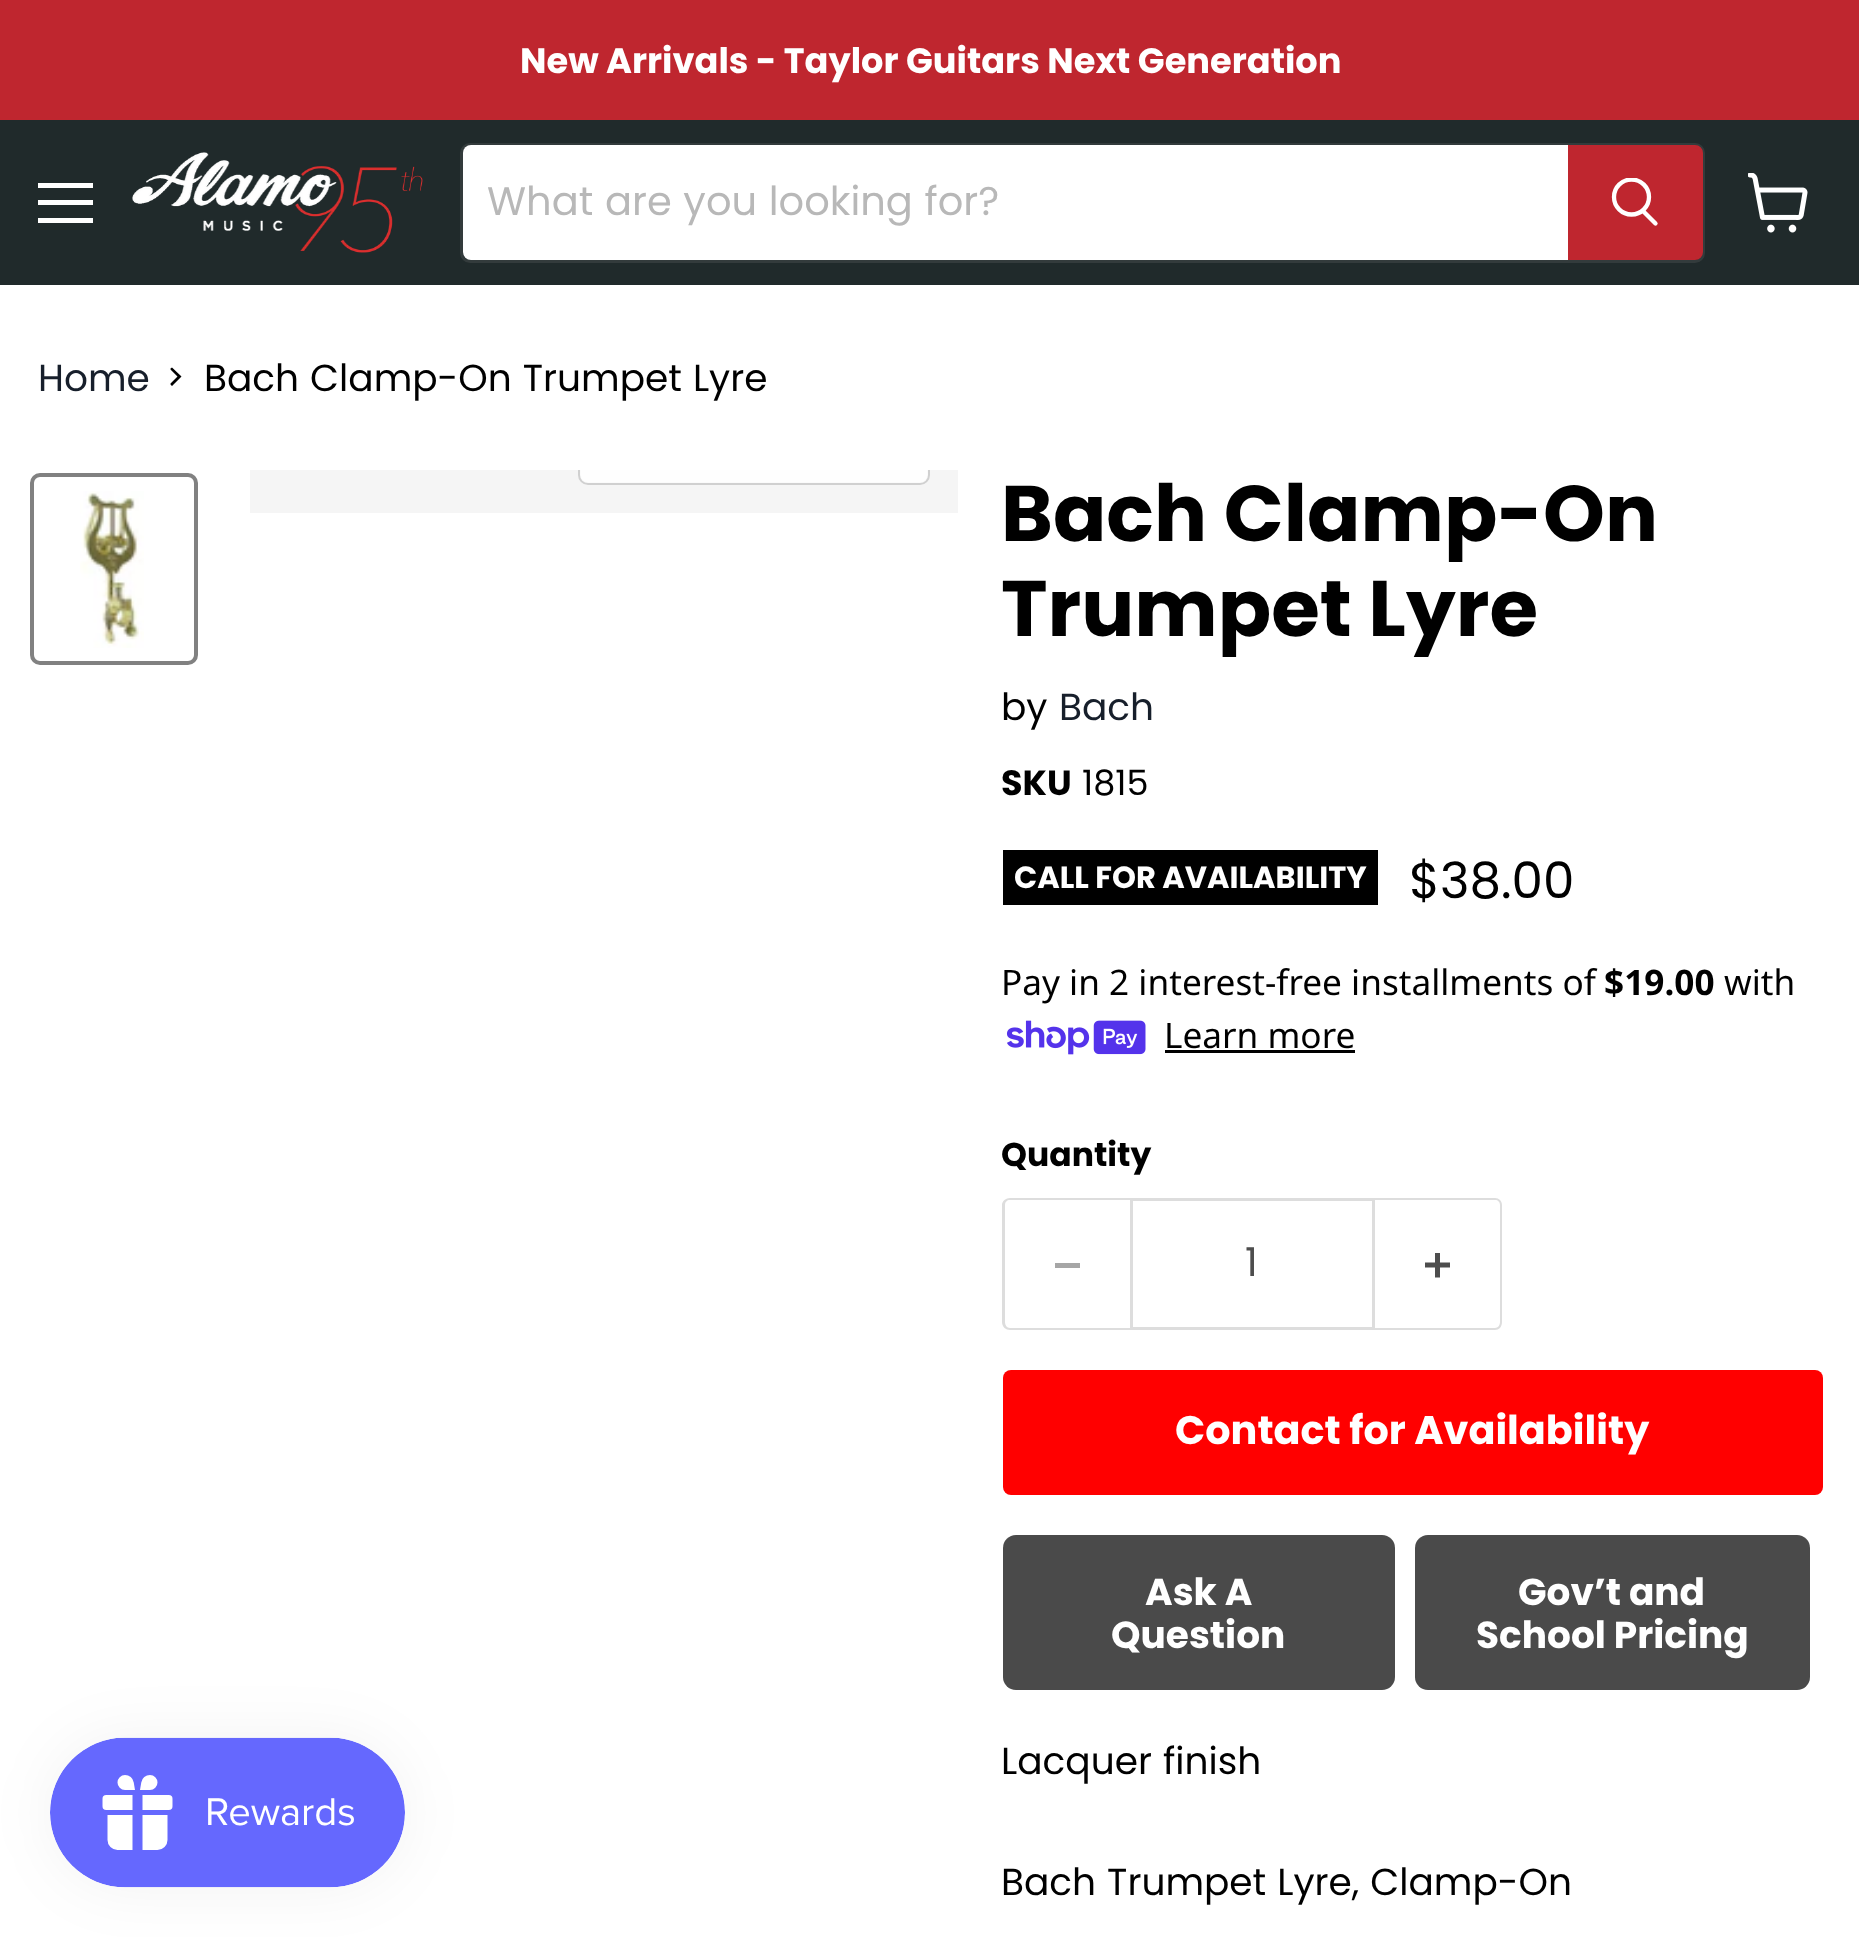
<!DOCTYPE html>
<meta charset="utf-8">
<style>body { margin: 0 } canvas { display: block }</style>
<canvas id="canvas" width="1859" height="1937"></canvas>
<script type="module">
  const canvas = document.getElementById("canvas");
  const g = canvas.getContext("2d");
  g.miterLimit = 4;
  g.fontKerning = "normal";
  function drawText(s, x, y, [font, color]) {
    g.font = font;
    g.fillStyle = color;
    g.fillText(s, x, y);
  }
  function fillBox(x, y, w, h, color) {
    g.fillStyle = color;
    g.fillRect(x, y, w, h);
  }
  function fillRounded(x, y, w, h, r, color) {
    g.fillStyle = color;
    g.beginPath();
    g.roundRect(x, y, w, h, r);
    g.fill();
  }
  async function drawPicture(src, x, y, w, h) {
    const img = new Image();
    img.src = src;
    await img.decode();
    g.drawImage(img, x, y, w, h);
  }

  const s1 = ["bold 35.2px Poppins", "#FFFFFF"];
  const s2 = ["40px Poppins", "#B8B8B8"];
  const s3 = ["37.5px Poppins", "#171F2B"];
  const s4 = ["37.5px Poppins", "#000000"];
  const s5 = ["bold 78.75px Poppins", "#000000"];
  const s6 = ["bold 35px Poppins", "#000000"];
  const s7 = ["35px Poppins", "#000000"];
  const s8 = ["bold 30.5px Poppins", "#FFFFFF"];
  const s9 = ["50px Poppins", "#000000"];
  const s10 = ["35.2px Noto Sans", "#000000"];
  const s11 = ["bold 35.2px Noto Sans", "#000000"];
  const s12 = ["bold 33px Poppins", "#000000"];
  const s13 = ["39.75px Poppins", "#4D4D4D"];
  const s14 = ["bold 39.75px Poppins", "#FFFFFF"];
  const s15 = ["bold 37.5px Poppins", "#FFFFFF"];

  fillBox(0, 0, 1859, 1937, "#FFFFFF");
  fillBox(0, 0, 1859, 120, "#BF262F");
  drawText("New Arrivals - Taylor Guitars Next Generation", 520, 73, s1);
  fillBox(0, 120, 1859, 165, "#202A2B");
  fillBox(38, 183, 55, 5, "#FFFFFF");
  fillBox(38, 200, 55, 5, "#FFFFFF");
  fillBox(38, 218, 55, 5, "#FFFFFF");
  await drawPicture("pic1.png", 132, 152, 291, 101);
  g.beginPath();
  g.roundRect(461.5, 144.5, 1242, 117, 8.5);
  g.strokeStyle = "rgba(128, 128, 128, 0.2)";
  g.lineWidth = 3;
  g.stroke();
  g.beginPath();
  g.roundRect(463, 145, 1105, 115, [8, 0, 0, 8]);
  g.fill();
  g.wordSpacing = "1px";
  drawText("What are you looking for?", 487, 215, s2);
  g.fillStyle = "#BF262F";
  g.beginPath();
  g.roundRect(1569.5, 146.5, 132, 112, [0, 6.5, 6.5, 0]);
  g.fill();
  g.strokeStyle = "#BF262F";
  g.stroke();
  g.beginPath();
  g.moveTo(1655.5, 223.5);
  g.lineTo(1643.5, 211.5);
  g.strokeStyle = "#FFFFFF";
  g.lineWidth = 4.3;
  g.lineCap = "round";
  g.stroke();
  g.save();
  g.beginPath();
  g.rect(1610, 178, 50, 52);
  g.clip();
  g.beginPath();
  g.arc(1631.5, 197, 17.5, 0, Math.PI * 2);
  g.stroke();
  g.restore();
  await drawPicture("pic2.png", 1748, 173, 60, 60);
  g.wordSpacing = "0px";
  drawText("Home", 38, 391, s3);
  g.fillStyle = "#000000";
  g.beginPath();
  g.moveTo(170.5, 369.5);
  g.lineTo(170.5, 368.5);
  g.lineTo(172, 367.5);
  g.lineTo(181.5, 376.5);
  g.lineTo(172, 386);
  g.lineTo(170.5, 384.5);
  g.lineTo(170.5, 383.5);
  g.lineTo(177.5, 376.5);
  g.closePath();
  g.fill();
  g.wordSpacing = "1px";
  drawText("Bach Clamp-On Trumpet Lyre", 204, 391, s4);
  fillBox(250, 470, 708, 43, "#F5F5F5");
  g.save();
  g.beginPath();
  g.rect(250, 470, 708, 43);
  g.clip();
  g.beginPath();
  g.roundRect(579.5, 414.5, 349, 69, 8.5);
  g.strokeStyle = "#D0D0D0";
  g.lineWidth = 3;
  g.stroke();
  g.restore();
  g.fillStyle = "rgba(255, 255, 255, 0.9)";
  g.beginPath();
  g.roundRect(580, 470, 348, 13, [0, 0, 8, 8]);
  g.fill();
  g.beginPath();
  g.roundRect(32, 475, 164, 188, 8);
  g.strokeStyle = "#818181";
  g.lineWidth = 4;
  g.stroke();
  await drawPicture("pic3.png", 80, 491, 64, 157);
  g.wordSpacing = "0px";
  drawText("Bach Clamp-On", 1001, 541, s5);
  drawText("Trumpet Lyre", 1001, 636, s5);
  drawText("by", 1001, 720, s4);
  drawText("Bach", 1059, 720, s3);
  drawText("SKU", 1001, 795, s6);
  drawText("1815", 1082, 795, s7);
  fillBox(1003, 850, 375, 55, "#000000");
  drawText("CALL FOR AVAILABILITY", 1014, 888, s8);
  drawText("$38.00", 1409, 898, s9);
  drawText("Pay in 2 interest-free installments of", 1001, 995, s10);
  drawText("$19.00", 1604, 995, s11);
  drawText("with", 1724, 995, s10);
  await drawPicture("pic4.png", 1006, 1020, 140, 35);
  drawText("Learn more", 1164, 1048, s10);
  fillBox(1165, 1050, 190, 3, "#000000");
  drawText("Quantity", 1001, 1166, s12);
  g.fillStyle = "#DDDDDD";
  g.beginPath();
  g.moveTo(1010, 1198);
  g.lineTo(1130, 1198);
  g.lineTo(1130, 1330);
  g.lineTo(1010, 1330);
  g.bezierCurveTo(1006, 1330, 1002, 1327, 1002, 1322);
  g.lineTo(1002, 1205);
  g.bezierCurveTo(1002, 1201, 1006, 1198, 1010, 1198);
  g.closePath();
  g.moveTo(1010, 1200);
  g.lineTo(1130, 1200);
  g.lineTo(1130, 1328);
  g.lineTo(1010, 1328);
  g.bezierCurveTo(1007, 1328, 1005, 1325, 1005, 1322);
  g.lineTo(1005, 1205);
  g.bezierCurveTo(1005, 1202, 1007, 1200, 1010, 1200);
  g.closePath();
  g.fill("evenodd");
  fillBox(1055, 1263, 25, 5, "#A6A6A6");
  g.strokeStyle = "#DDDDDD";
  g.lineWidth = 3;
  g.strokeRect(1131.5, 1199.5, 242, 129);
  drawText("1", 1245, 1276, s13);
  g.fillStyle = "#DDDDDD";
  g.beginPath();
  g.moveTo(1375, 1198);
  g.lineTo(1495, 1198);
  g.bezierCurveTo(1499, 1198, 1502, 1201, 1502, 1205);
  g.lineTo(1502, 1322);
  g.bezierCurveTo(1502, 1327, 1499, 1330, 1495, 1330);
  g.lineTo(1375, 1330);
  g.closePath();
  g.moveTo(1375, 1200);
  g.lineTo(1495, 1200);
  g.bezierCurveTo(1498, 1200, 1500, 1202, 1500, 1205);
  g.lineTo(1500, 1322);
  g.bezierCurveTo(1500, 1325, 1498, 1328, 1495, 1328);
  g.lineTo(1375, 1328);
  g.closePath();
  g.fill("evenodd");
  await drawPicture("pic5.png", 1425, 1253, 25, 25);
  fillRounded(1003, 1370, 820, 125, 8, "#FF0000");
  drawText("Contact for Availability", 1175, 1444, s14);
  fillRounded(1003, 1535, 392, 155, 13, "#4A4A4A");
  drawText("Ask A", 1145, 1605, s15);
  drawText("Question", 1111, 1648, s15);
  fillRounded(1415, 1535, 395, 155, 13, "#4A4A4A");
  drawText("Gov’t and", 1518, 1605, s15);
  drawText("School Pricing", 1476, 1648, s15);
  g.wordSpacing = "1px";
  drawText("Lacquer finish", 1001, 1774, s4);
  drawText("Bach Trumpet Lyre, Clamp-On", 1001, 1895, s4);
  g.fillStyle = "rgba(0, 0, 0, 0.05)";
  g.filter = "blur(31px)";
  g.beginPath();
  g.roundRect(50, 1738, 355, 150, 75);
  g.fill();
  g.filter = "none";
  await drawPicture("pic6.png", 50, 1737, 355, 151);
</script>
